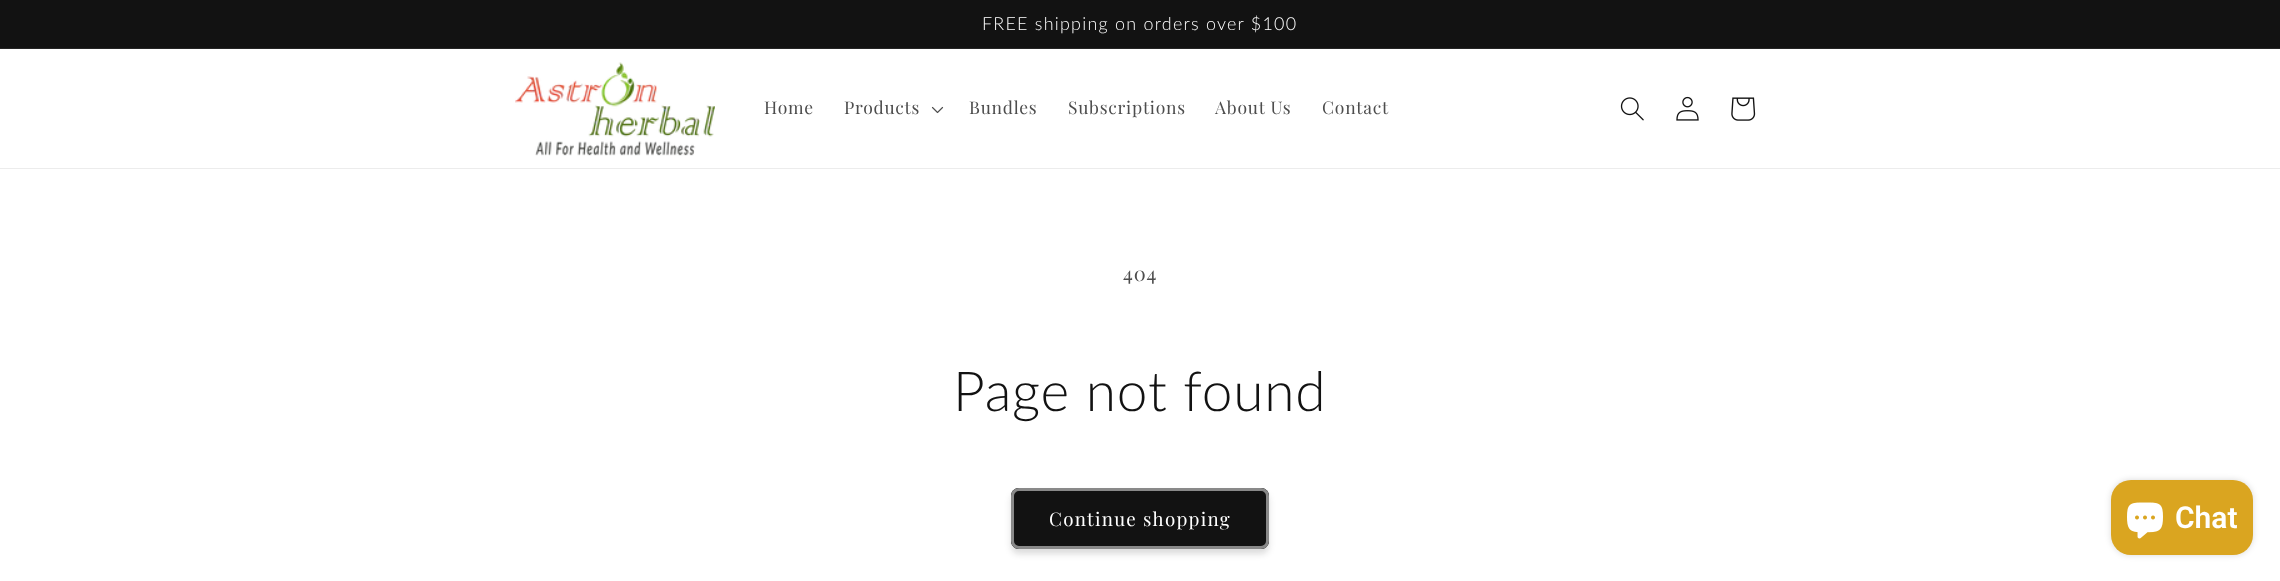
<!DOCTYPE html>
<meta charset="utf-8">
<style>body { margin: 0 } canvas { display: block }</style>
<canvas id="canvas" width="2280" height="581"></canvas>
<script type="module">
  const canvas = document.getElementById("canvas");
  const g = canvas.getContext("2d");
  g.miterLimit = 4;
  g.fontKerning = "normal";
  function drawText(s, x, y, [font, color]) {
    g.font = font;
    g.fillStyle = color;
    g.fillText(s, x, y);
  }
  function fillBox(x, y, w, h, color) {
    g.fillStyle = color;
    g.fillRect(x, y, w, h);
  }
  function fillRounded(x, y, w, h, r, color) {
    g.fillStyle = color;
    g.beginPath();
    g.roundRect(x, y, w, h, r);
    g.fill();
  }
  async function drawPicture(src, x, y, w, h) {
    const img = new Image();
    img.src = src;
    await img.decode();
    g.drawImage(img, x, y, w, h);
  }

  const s1 = ["300 17.9px Lato", "#FFFFFF"];
  const s2 = ["17.5px Playfair Display", "#4D4D4D"];
  const s3 = ["20px Playfair Display", "#4D4D4D"];
  const s4 = ["300 55px Lato", "#121212"];
  const s5 = ["18.75px Playfair Display", "#FFFFFF"];
  const s6 = ["600 30px Roboto", "#FFFFFF"];

  fillBox(0, 0, 2280, 581, "#FFFFFF");
  fillBox(0, 0, 2280, 48, "#121212");
  fillBox(0, 48, 2280, 1, "#252525");
  g.letterSpacing = "1.25px";
  drawText("FREE shipping on orders over $100", 982, 30, s1);
  fillBox(0, 168, 2280, 1, "#ECECEC");
  await drawPicture("pic1.png", 515, 62, 200, 94);
  g.letterSpacing = "0.75px";
  drawText("Home", 764, 114, s2);
  drawText("Products", 844, 114, s2);
  await drawPicture("pic2.png", 931, 106, 13, 8);
  drawText("Bundles", 969, 114, s2);
  drawText("Subscriptions", 1068, 114, s2);
  drawText("About Us", 1215, 114, s2);
  drawText("Contact", 1322, 114, s2);
  await drawPicture("pic3.png", 1620, 97, 24, 24);
  await drawPicture("pic4.png", 1676, 96, 23, 25);
  await drawPicture("pic5.png", 1731, 97, 25, 24);
  drawText("404", 1123, 281, s3);
  g.letterSpacing = "0.8px";
  drawText("Page not found", 953, 411, s4);
  g.fillStyle = "rgba(18, 18, 18, 0.15)";
  g.filter = "blur(3px)";
  g.beginPath();
  g.roundRect(1011, 493, 258, 61, 8);
  g.fill();
  g.filter = "none";
  fillRounded(1011, 488, 258, 61, 8, "#121212");
  g.beginPath();
  g.roundRect(1012.5, 489.5, 255, 58, 6.5);
  g.strokeStyle = "#121212";
  g.lineWidth = 3;
  g.stroke();
  g.beginPath();
  g.roundRect(1012.5, 489.5, 255, 58, 6.5);
  g.strokeStyle = "rgba(255, 255, 255, 0.5)";
  g.stroke();
  g.letterSpacing = "1.25px";
  drawText("Continue shopping", 1049, 526, s5);
  g.fillStyle = "rgba(0, 0, 0, 0.15)";
  g.filter = "blur(3px)";
  g.beginPath();
  g.roundRect(2111, 480, 142, 75, 20);
  g.fill();
  g.filter = "none";
  fillRounded(2111, 480, 142, 75, 20, "#DAA520");
  await drawPicture("pic6.png", 2127, 502, 36, 37);
  g.letterSpacing = "0px";
  drawText("Chat", 2175, 528, s6);
</script>
